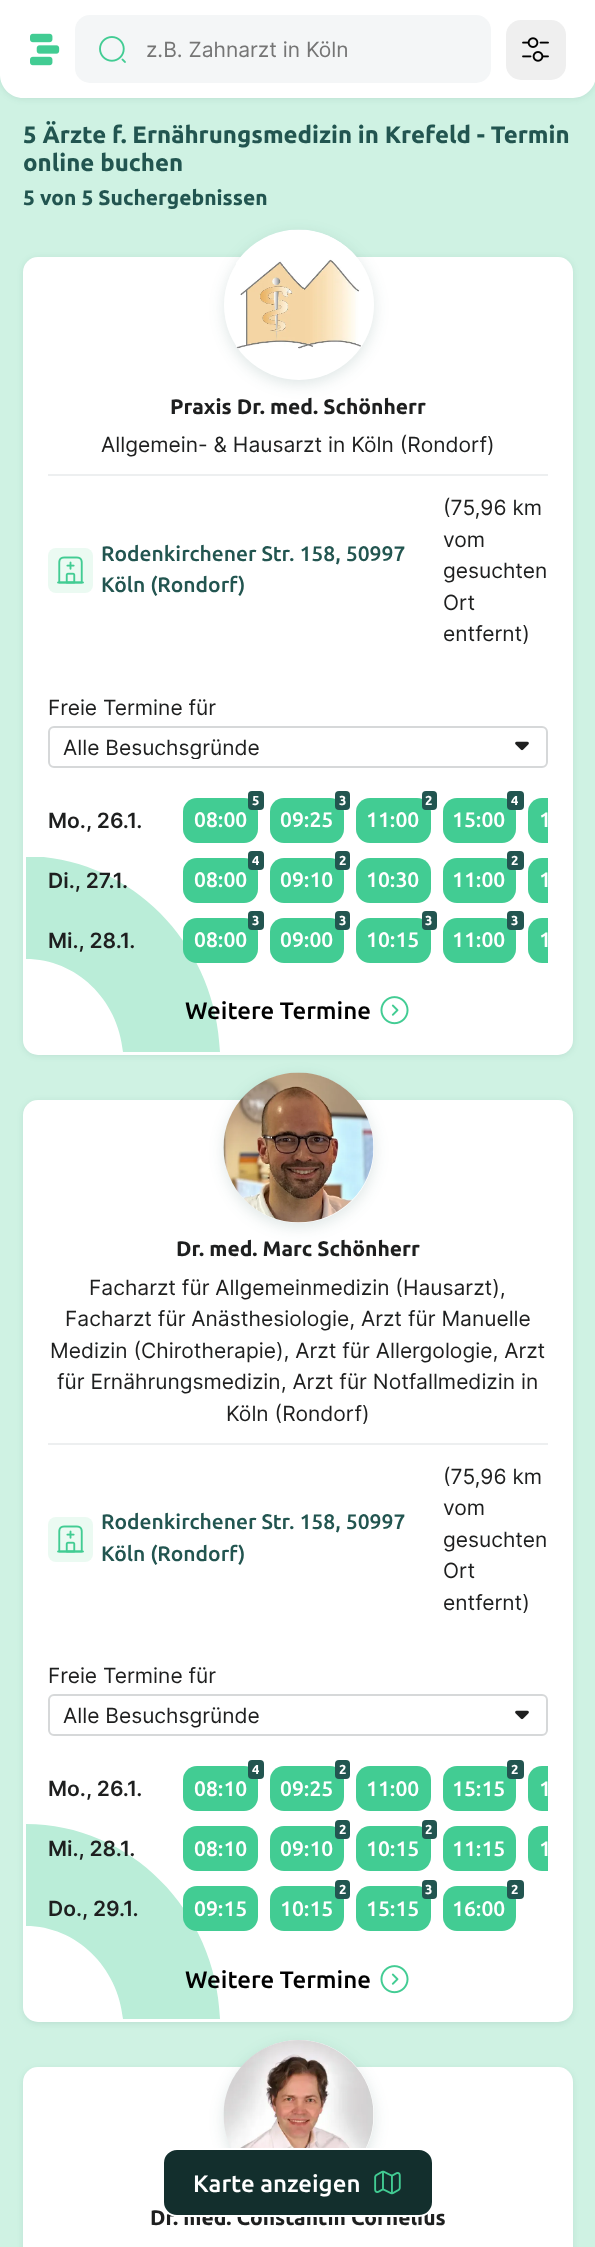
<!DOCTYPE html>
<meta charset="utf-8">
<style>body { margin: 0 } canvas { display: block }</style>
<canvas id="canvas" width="595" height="2247"></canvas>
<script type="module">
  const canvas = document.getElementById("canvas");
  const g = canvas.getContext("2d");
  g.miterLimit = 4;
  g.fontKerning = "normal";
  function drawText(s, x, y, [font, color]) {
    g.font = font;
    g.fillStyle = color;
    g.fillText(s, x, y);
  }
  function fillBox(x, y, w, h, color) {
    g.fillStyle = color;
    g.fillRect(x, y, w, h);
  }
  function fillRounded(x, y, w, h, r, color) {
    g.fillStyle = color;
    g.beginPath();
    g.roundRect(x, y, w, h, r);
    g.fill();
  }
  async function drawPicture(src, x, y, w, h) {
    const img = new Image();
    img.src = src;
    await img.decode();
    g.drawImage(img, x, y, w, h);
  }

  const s1 = ["21px Inter", "#757575"];
  const s2 = ["bold 24px Ubuntu", "#225550"];
  const s3 = ["bold 21px Ubuntu", "#225550"];
  const s4 = ["bold 21px Ubuntu", "#1E1F1F"];
  const s5 = ["21px Inter", "#1E1F1F"];
  const s6 = ["500 21px Ubuntu", "#225550"];
  const s7 = ["600 21px Inter", "#1E1F1F"];
  const s8 = ["bold 13px Ubuntu", "#FFFFFF"];
  const s9 = ["500 21px Ubuntu", "#FFFFFF"];
  const s10 = ["500 24px Ubuntu", "#000000"];
  const s11 = ["500 24px Ubuntu", "#FFFFFF"];

  fillBox(0, 0, 595, 2247, "#CFF2E3");
  g.fillStyle = "rgba(34, 85, 80, 0.1)";
  g.filter = "blur(3px)";
  g.beginPath();
  g.roundRect(0, 2, 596, 97, 23);
  g.fill();
  g.filter = "none";
  g.fillStyle = "#FFFFFF";
  g.beginPath();
  g.moveTo(0, 0);
  g.lineTo(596, 0);
  g.lineTo(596, 75);
  g.bezierCurveTo(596, 87.5, 585.5, 98, 573, 98);
  g.lineTo(23, 98);
  g.bezierCurveTo(10.5, 98, 0, 87.5, 0, 75);
  g.closePath();
  g.fill();
  await drawPicture("pic1.png", 30, 33, 30, 33);
  fillRounded(75, 15, 416, 68, 15, "#F4F6F7");
  await drawPicture("pic2.png", 99, 36, 27, 27);
  drawText("z.B. Zahnarzt in Köln", 146, 57, s1);
  fillRounded(506, 20, 60, 60, 15, "#EFEFEF");
  await drawPicture("pic3.png", 522, 37, 27, 25);
  drawText("5 Ärzte f. Ernährungsmedizin in Krefeld - Termin", 23, 143, s2);
  drawText("online buchen", 23, 171, s2);
  drawText("5 von 5 Suchergebnissen", 23, 205, s3);
  g.fillStyle = "rgba(34, 85, 80, 0.1)";
  g.filter = "blur(3px)";
  g.beginPath();
  g.roundRect(23, 258, 550, 798, 15);
  g.fill();
  g.filter = "none";
  fillRounded(23, 257, 550, 798, 15, "#FFFFFF");
  g.fillStyle = "rgba(34, 85, 80, 0.15)";
  g.filter = "blur(7.5px)";
  g.beginPath();
  g.roundRect(224, 234, 150, 150, 75);
  g.fill();
  g.filter = "none";
  g.fillStyle = "#FFFFFF";
  g.beginPath();
  g.arc(299, 305, 75, 0, Math.PI * 2);
  g.fill();
  await drawPicture("pic4.png", 236, 229, 125, 120);
  drawText("Praxis Dr. med. Schönherr", 170, 414, s4);
  drawText("Allgemein- & Hausarzt in Köln (Rondorf)", 101, 452, s5);
  fillBox(48, 474, 500, 2, "#EDEFF0");
  fillRounded(48, 548, 45, 45, 8, "#EBFAF2");
  await drawPicture("pic5.png", 57, 556, 27, 28);
  drawText("Rodenkirchener Str. 158, 50997", 101, 561, s6);
  drawText("Köln (Rondorf)", 101, 592, s6);
  drawText("(75,96 km", 443, 515, s5);
  drawText("vom", 443, 547, s5);
  drawText("gesuchten", 443, 578, s5);
  drawText("Ort", 443, 610, s5);
  drawText("entfernt)", 443, 641, s5);
  drawText("Freie Termine für", 48, 715, s5);
  await drawPicture("pic6.png", 515, 741, 14, 10);
  g.beginPath();
  g.roundRect(49, 727, 498, 40, 5);
  g.strokeStyle = "#D6D8D9";
  g.lineWidth = 2;
  g.stroke();
  g.save();
  g.beginPath();
  g.rect(63, 734, 444, 25);
  g.clip();
  drawText("Alle Besuchsgründe", 63, 755, s5);
  g.restore();
  drawText("Mo., 26.1.", 48, 828, s7);
  fillRounded(183, 798, 75, 45, 14, "#42CC93");
  fillRounded(248, 791, 16, 19, 4, "#225550");
  drawText("5", 252, 805, s8);
  drawText("08:00", 194, 827, s9);
  fillRounded(270, 798, 74, 45, 14, "#42CC93");
  fillRounded(335, 791, 15, 19, 4, "#225550");
  drawText("3", 339, 805, s8);
  drawText("09:25", 280, 827, s9);
  fillRounded(356, 798, 75, 45, 14, "#42CC93");
  fillRounded(422, 791, 15, 19, 4, "#225550");
  drawText("2", 425, 805, s8);
  drawText("11:00", 366, 827, s9);
  fillRounded(443, 798, 73, 45, 14, "#42CC93");
  fillRounded(507, 791, 17, 19, 4, "#225550");
  drawText("4", 511, 805, s8);
  drawText("15:00", 452, 827, s9);
  g.fillStyle = "#42CC93";
  g.beginPath();
  g.roundRect(528, 798, 20, 45, [14, 0, 0, 14]);
  g.fill();
  drawText("1", 539, 827, s9);
  g.save();
  g.beginPath();
  g.rect(26, 857, 195, 195);
  g.clip();
  g.fillStyle = "#BAEDD8";
  g.beginPath();
  g.moveTo(220, 1052);
  g.bezierCurveTo(216, 943, 130, 857, 26, 856);
  g.lineTo(26, 959);
  g.bezierCurveTo(76, 959, 118, 999, 123, 1052);
  g.closePath();
  g.fill("evenodd");
  g.restore();
  drawText("Di., 27.1.", 48, 888, s7);
  fillRounded(183, 858, 75, 45, 14, "#42CC93");
  fillRounded(248, 851, 16, 19, 4, "#225550");
  drawText("4", 252, 865, s8);
  drawText("08:00", 194, 887, s9);
  fillRounded(270, 858, 74, 45, 14, "#42CC93");
  fillRounded(335, 851, 15, 19, 4, "#225550");
  drawText("2", 339, 865, s8);
  drawText("09:10", 280, 887, s9);
  fillRounded(356, 858, 75, 45, 14, "#42CC93");
  drawText("10:30", 366, 887, s9);
  fillRounded(443, 858, 73, 45, 14, "#42CC93");
  fillRounded(507, 851, 17, 19, 4, "#225550");
  drawText("2", 511, 865, s8);
  drawText("11:00", 452, 887, s9);
  g.fillStyle = "#42CC93";
  g.beginPath();
  g.roundRect(528, 858, 20, 45, [14, 0, 0, 14]);
  g.fill();
  drawText("1", 539, 887, s9);
  drawText("Mi., 28.1.", 48, 948, s7);
  fillRounded(183, 918, 75, 45, 14, "#42CC93");
  fillRounded(248, 911, 16, 19, 4, "#225550");
  drawText("3", 252, 925, s8);
  drawText("08:00", 194, 947, s9);
  fillRounded(270, 918, 74, 45, 14, "#42CC93");
  fillRounded(335, 911, 15, 19, 4, "#225550");
  drawText("3", 339, 925, s8);
  drawText("09:00", 280, 947, s9);
  fillRounded(356, 918, 75, 45, 14, "#42CC93");
  fillRounded(422, 911, 15, 19, 4, "#225550");
  drawText("3", 425, 925, s8);
  drawText("10:15", 366, 947, s9);
  fillRounded(443, 918, 73, 45, 14, "#42CC93");
  fillRounded(507, 911, 17, 19, 4, "#225550");
  drawText("3", 511, 925, s8);
  drawText("11:00", 452, 947, s9);
  g.fillStyle = "#42CC93";
  g.beginPath();
  g.roundRect(528, 918, 20, 45, [14, 0, 0, 14]);
  g.fill();
  drawText("1", 539, 947, s9);
  drawText("Weitere Termine", 185, 1019, s10);
  await drawPicture("pic7.png", 380, 996, 29, 29);
  g.fillStyle = "rgba(34, 85, 80, 0.1)";
  g.filter = "blur(3px)";
  g.beginPath();
  g.roundRect(23, 1101, 550, 923, 15);
  g.fill();
  g.filter = "none";
  fillRounded(23, 1100, 550, 922, 15, "#FFFFFF");
  g.fillStyle = "rgba(34, 85, 80, 0.15)";
  g.filter = "blur(7.5px)";
  g.beginPath();
  g.roundRect(224, 1077, 150, 150, 75);
  g.fill();
  g.filter = "none";
  g.fillStyle = "#FFFFFF";
  g.beginPath();
  g.arc(299, 1148, 75, 0, Math.PI * 2);
  g.fill();
  await drawPicture("pic8.png", 223, 1072, 151, 151);
  drawText("Dr. med. Marc Schönherr", 176, 1256, s4);
  drawText("Facharzt für Allgemeinmedizin (Hausarzt),", 89, 1295, s5);
  drawText("Facharzt für Anästhesiologie, Arzt für Manuelle", 65, 1326, s5);
  drawText("Medizin (Chirotherapie), Arzt für Allergologie, Arzt", 50, 1358, s5);
  drawText("für Ernährungsmedizin, Arzt für Notfallmedizin in", 57, 1389, s5);
  drawText("Köln (Rondorf)", 226, 1421, s5);
  fillBox(48, 1443, 500, 2, "#EDEFF0");
  fillRounded(48, 1517, 45, 45, 8, "#EBFAF2");
  await drawPicture("pic5.png", 57, 1525, 27, 28);
  drawText("Rodenkirchener Str. 158, 50997", 101, 1529, s6);
  drawText("Köln (Rondorf)", 101, 1561, s6);
  drawText("(75,96 km", 443, 1484, s5);
  drawText("vom", 443, 1515, s5);
  drawText("gesuchten", 443, 1547, s5);
  drawText("Ort", 443, 1578, s5);
  drawText("entfernt)", 443, 1610, s5);
  drawText("Freie Termine für", 48, 1683, s5);
  await drawPicture("pic6.png", 515, 1710, 14, 10);
  g.beginPath();
  g.roundRect(49, 1695, 498, 40, 5);
  g.stroke();
  drawText("Alle Besuchsgründe", 63, 1723, s5);
  drawText("Mo., 26.1.", 48, 1796, s7);
  fillRounded(183, 1766, 75, 45, 14, "#42CC93");
  fillRounded(248, 1760, 16, 19, 4, "#225550");
  drawText("4", 252, 1774, s8);
  drawText("08:10", 194, 1796, s9);
  fillRounded(270, 1766, 74, 45, 14, "#42CC93");
  fillRounded(335, 1760, 15, 19, 4, "#225550");
  drawText("2", 339, 1774, s8);
  drawText("09:25", 280, 1796, s9);
  fillRounded(356, 1766, 75, 45, 14, "#42CC93");
  drawText("11:00", 366, 1796, s9);
  fillRounded(443, 1766, 73, 45, 14, "#42CC93");
  fillRounded(507, 1760, 17, 19, 4, "#225550");
  drawText("2", 511, 1774, s8);
  drawText("15:15", 452, 1796, s9);
  g.fillStyle = "#42CC93";
  g.beginPath();
  g.roundRect(528, 1766, 20, 45, [14, 0, 0, 14]);
  g.fill();
  drawText("1", 539, 1796, s9);
  g.fillStyle = "#BAEDD8";
  g.beginPath();
  g.moveTo(220, 2019);
  g.bezierCurveTo(216, 1910, 130, 1824, 26, 1824);
  g.lineTo(26, 1926);
  g.bezierCurveTo(76, 1926, 118, 1967, 123, 2019);
  g.closePath();
  g.fill("evenodd");
  drawText("Mi., 28.1.", 48, 1856, s7);
  fillRounded(183, 1826, 75, 45, 14, "#42CC93");
  drawText("08:10", 194, 1856, s9);
  fillRounded(270, 1826, 74, 45, 14, "#42CC93");
  fillRounded(335, 1820, 15, 19, 4, "#225550");
  drawText("2", 339, 1834, s8);
  drawText("09:10", 280, 1856, s9);
  fillRounded(356, 1826, 75, 45, 14, "#42CC93");
  fillRounded(422, 1820, 15, 19, 4, "#225550");
  drawText("2", 425, 1834, s8);
  drawText("10:15", 366, 1856, s9);
  fillRounded(443, 1826, 73, 45, 14, "#42CC93");
  drawText("11:15", 452, 1856, s9);
  g.fillStyle = "#42CC93";
  g.beginPath();
  g.roundRect(528, 1826, 20, 45, [14, 0, 0, 14]);
  g.fill();
  drawText("1", 539, 1856, s9);
  drawText("Do., 29.1.", 48, 1916, s7);
  fillRounded(183, 1886, 75, 45, 14, "#42CC93");
  drawText("09:15", 194, 1916, s9);
  fillRounded(270, 1886, 74, 45, 14, "#42CC93");
  fillRounded(335, 1880, 15, 19, 4, "#225550");
  drawText("2", 339, 1894, s8);
  drawText("10:15", 280, 1916, s9);
  fillRounded(356, 1886, 75, 45, 14, "#42CC93");
  fillRounded(422, 1880, 15, 19, 4, "#225550");
  drawText("3", 425, 1894, s8);
  drawText("15:15", 366, 1916, s9);
  fillRounded(443, 1886, 73, 45, 14, "#42CC93");
  fillRounded(507, 1880, 17, 19, 4, "#225550");
  drawText("2", 511, 1894, s8);
  drawText("16:00", 452, 1916, s9);
  drawText("Weitere Termine", 185, 1988, s10);
  await drawPicture("pic7.png", 380, 1965, 29, 29);
  g.fillStyle = "rgba(34, 85, 80, 0.1)";
  g.filter = "blur(3px)";
  g.beginPath();
  g.roundRect(23, 2069, 550, 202, 15);
  g.fill();
  g.filter = "none";
  fillRounded(23, 2067, 550, 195, 15, "#FFFFFF");
  g.fillStyle = "rgba(34, 85, 80, 0.15)";
  g.filter = "blur(7.5px)";
  g.beginPath();
  g.roundRect(224, 2045, 150, 150, 75);
  g.fill();
  g.filter = "none";
  g.fillStyle = "#FFFFFF";
  g.beginPath();
  g.arc(299, 2115, 75, 0, Math.PI * 2);
  g.fill();
  await drawPicture("pic9.png", 223, 2040, 151, 108);
  drawText("Dr. med. Constantin Cornelius", 150, 2225, s4);
  g.fillStyle = "#132F2D";
  g.beginPath();
  g.roundRect(163, 2149, 270, 67, 14);
  g.fill();
  g.strokeStyle = "#FFFFFF";
  g.stroke();
  drawText("Karte anzeigen", 193, 2192, s11);
  await drawPicture("pic10.png", 374, 2170, 27, 25);
</script>
